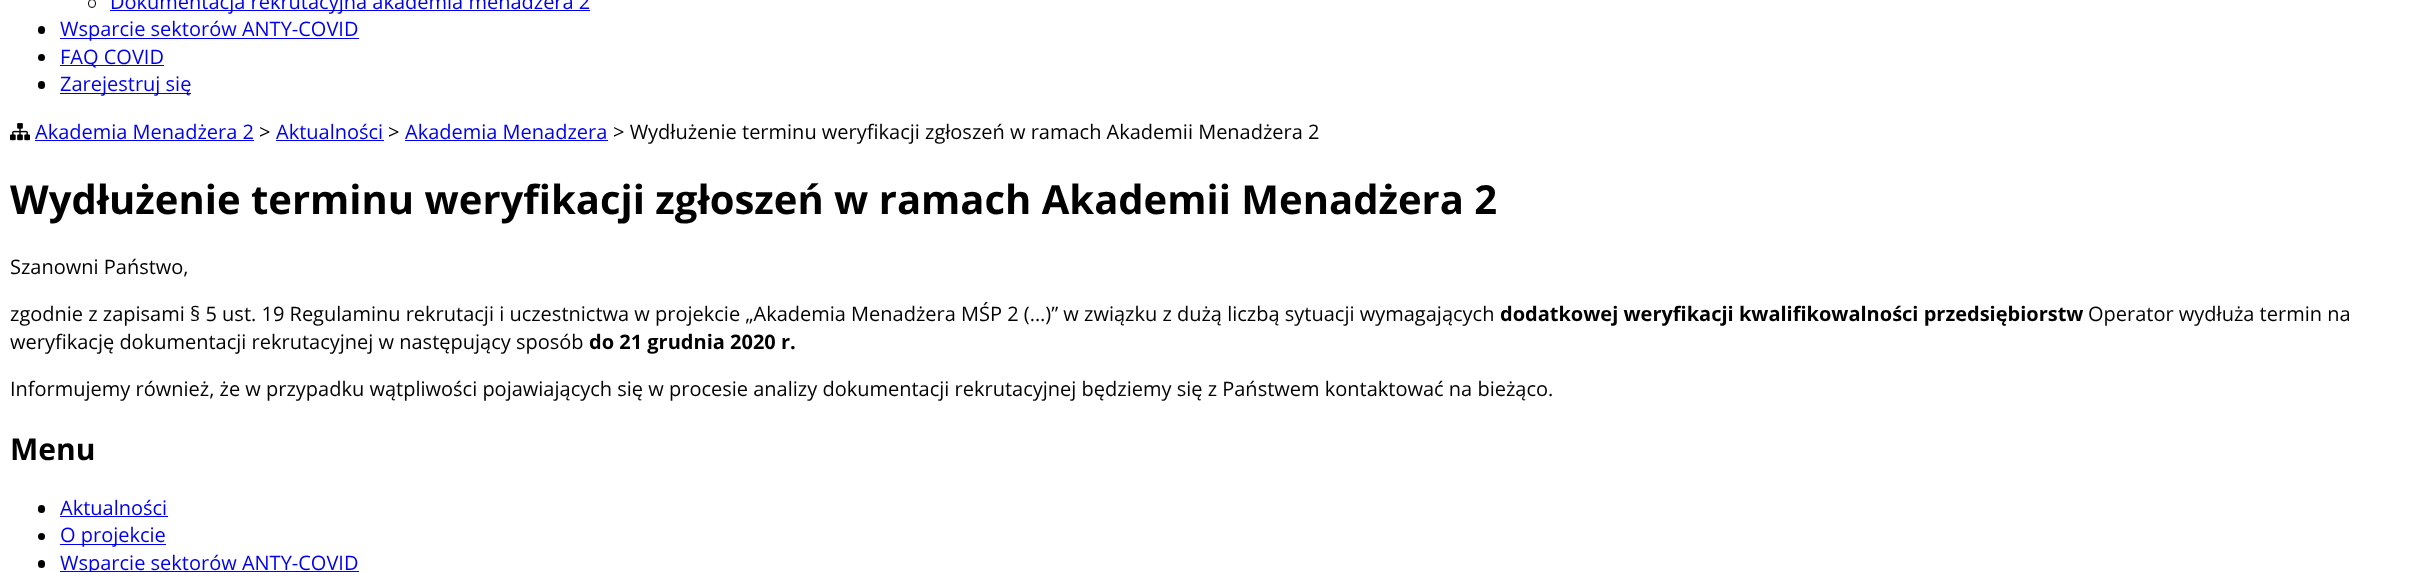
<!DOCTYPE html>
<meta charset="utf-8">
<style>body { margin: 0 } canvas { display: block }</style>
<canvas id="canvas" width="2417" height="572"></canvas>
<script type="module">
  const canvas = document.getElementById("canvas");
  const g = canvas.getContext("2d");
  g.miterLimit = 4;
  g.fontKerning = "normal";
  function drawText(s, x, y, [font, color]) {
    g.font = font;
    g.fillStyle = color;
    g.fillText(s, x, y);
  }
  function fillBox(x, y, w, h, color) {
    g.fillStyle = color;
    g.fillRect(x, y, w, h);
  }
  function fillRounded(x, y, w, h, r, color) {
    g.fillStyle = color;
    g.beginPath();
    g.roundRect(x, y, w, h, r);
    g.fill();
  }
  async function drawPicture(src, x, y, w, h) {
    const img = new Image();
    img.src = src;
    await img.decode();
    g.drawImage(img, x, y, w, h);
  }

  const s1 = ["20px Open Sans", "#0000EE"];
  const s2 = ["20px Open Sans", "#000000"];
  const s3 = ["bold 40px Open Sans", "#000000"];
  const s4 = ["bold 20px Open Sans", "#000000"];
  const s5 = ["bold 30px Open Sans", "#000000"];

  fillBox(0, 0, 2417, 572, "#FFFFFF");
  g.beginPath();
  g.roundRect(88.5, -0.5, 7, 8, 3.5);
  g.strokeStyle = "#000000";
  g.stroke();
  fillBox(110, 10, 480, 1, "#0000EE");
  drawText("Dokumentacja rekrutacyjna akademia menadżera 2", 110, 9, s1);
  fillRounded(38, 26, 7, 8, 3.5, "#000000");
  fillBox(60, 38, 299, 1, "#0000EE");
  drawText("Wsparcie sektorów ANTY-COVID", 60, 36, s1);
  g.fillStyle = "#000000";
  g.beginPath();
  g.arc(41.5, 57.5, 3.5, 0, Math.PI * 2);
  g.fill();
  fillBox(60, 65, 104, 1, "#0000EE");
  drawText("FAQ COVID", 60, 64, s1);
  fillRounded(38, 81, 7, 8, 3.5, "#000000");
  fillBox(60, 93, 131, 1, "#0000EE");
  drawText("Zarejestruj się", 60, 91, s1);
  await drawPicture("pic1.png", 10, 123, 20, 18);
  drawText("Akademia Menadżera 2", 35, 139, s1);
  fillBox(35, 140, 219, 1, "#0000EE");
  drawText(">", 259, 139, s2);
  drawText("Aktualności", 276, 139, s1);
  fillBox(276, 140, 108, 1, "#0000EE");
  drawText(">", 388, 139, s2);
  drawText("Akademia Menadzera", 405, 139, s1);
  fillBox(405, 140, 203, 1, "#0000EE");
  drawText("> Wydłużenie terminu weryfikacji zgłoszeń w ramach Akademii Menadżera 2", 613, 139, s2);
  drawText("Wydłużenie terminu weryfikacji zgłoszeń w ramach Akademii Menadżera 2", 10, 214, s3);
  drawText("Szanowni Państwo,", 10, 274, s2);
  drawText("zgodnie z zapisami § 5 ust. 19 Regulaminu rekrutacji i uczestnictwa w projekcie „Akademia Menadżera MŚP 2 (…)” w związku z dużą liczbą sytuacji wymagających", 10, 321, s2);
  drawText("dodatkowej weryfikacji kwalifikowalności przedsiębiorstw", 1500, 321, s4);
  drawText("Operator wydłuża termin na", 2088, 321, s2);
  drawText("weryfikację dokumentacji rekrutacyjnej w następujący sposób", 10, 349, s2);
  drawText("do 21 grudnia 2020 r.", 589, 349, s4);
  drawText("Informujemy również, że w przypadku wątpliwości pojawiających się w procesie analizy dokumentacji rekrutacyjnej będziemy się z Państwem kontaktować na bieżąco.", 10, 396, s2);
  drawText("Menu", 10, 460, s5);
  fillRounded(38, 505, 7, 8, 3.5, "#000000");
  drawText("Aktualności", 60, 515, s1);
  fillBox(60, 516, 108, 1, "#0000EE");
  g.fillStyle = "#000000";
  g.beginPath();
  g.arc(41.5, 536.5, 3.5, 0, Math.PI * 2);
  g.fill();
  fillBox(60, 544, 106, 1, "#0000EE");
  drawText("O projekcie", 60, 542, s1);
  fillRounded(38, 560, 7, 8, 3.5, "#000000");
  fillBox(60, 571, 299, 1, "#0000EE");
  drawText("Wsparcie sektorów ANTY-COVID", 60, 570, s1);
</script>
